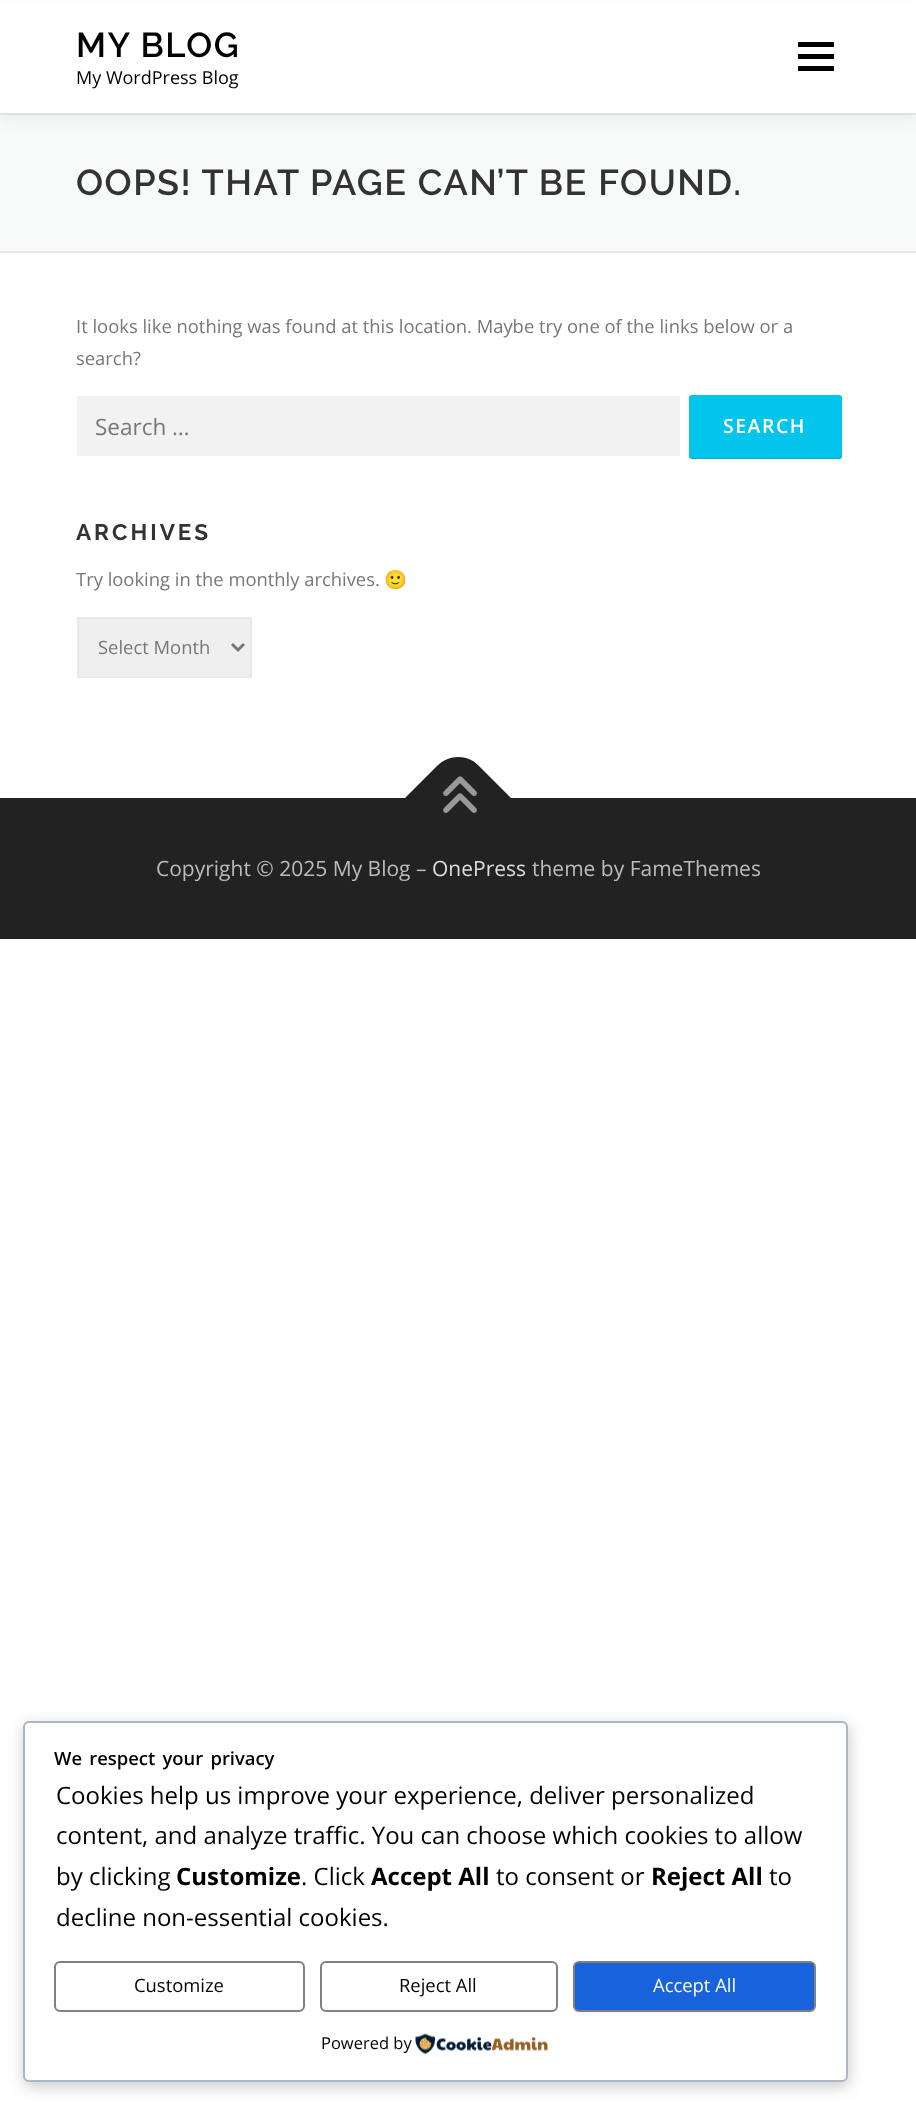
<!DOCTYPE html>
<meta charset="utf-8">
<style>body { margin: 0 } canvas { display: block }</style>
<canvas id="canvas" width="916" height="2112"></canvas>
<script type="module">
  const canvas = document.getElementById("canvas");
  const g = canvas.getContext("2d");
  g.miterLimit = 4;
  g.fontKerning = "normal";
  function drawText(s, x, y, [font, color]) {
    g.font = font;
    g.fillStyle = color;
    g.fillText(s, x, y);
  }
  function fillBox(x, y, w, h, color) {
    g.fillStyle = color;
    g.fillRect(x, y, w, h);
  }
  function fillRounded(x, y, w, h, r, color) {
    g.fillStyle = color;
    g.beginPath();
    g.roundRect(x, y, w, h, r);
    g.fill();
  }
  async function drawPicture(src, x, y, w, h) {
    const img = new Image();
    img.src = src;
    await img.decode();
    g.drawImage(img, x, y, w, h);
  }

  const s1 = ["600 34.5px Raleway", "#000000"];
  const s2 = ["18px Open Sans", "#000000"];
  const s3 = ["600 36px Raleway", "#333333"];
  const s4 = ["18.4px Open Sans", "#777777"];
  const s5 = ["22.5px Open Sans", "#777777"];
  const s6 = ["600 19.5px Open Sans", "#FFFFFF"];
  const s7 = ["bold 22.5px Raleway", "#333333"];
  const s8 = ["18.4px Noto Color Emoji", "#777777"];
  const s9 = ["21px Open Sans", "#BBBBBB"];
  const s10 = ["21px Open Sans", "#DDDDDD"];
  const s11 = ["600 18.4px Open Sans", "#000000"];
  const s12 = ["24px Open Sans", "#000000"];
  const s13 = ["bold 24px Open Sans", "#000000"];
  const s14 = ["18.4px Open Sans", "#000000"];
  const s15 = ["18.4px Open Sans", "#FFFFFF"];
  const s16 = ["16.5px Open Sans", "#000000"];

  fillBox(0, 0, 916, 2112, "#FFFFFF");
  fillBox(0, 115, 916, 136, "#F8F9F9");
  fillBox(0, 113, 916, 2, "#E9E9E9");
  g.fillStyle = "rgba(50, 50, 50, 0.06)";
  g.filter = "blur(7.5px)";
  g.beginPath();
  g.rect(0, 8, 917, 112);
  g.fill();
  g.filter = "none";
  fillBox(0, 2, 916, 111, "#FFFFFF");
  g.letterSpacing = "1.5px";
  drawText("MY BLOG", 76, 57, s1);
  g.letterSpacing = "0px";
  drawText("My WordPress Blog", 76, 84, s2);
  fillBox(798, 54, 36, 5, "#000000");
  fillBox(798, 42, 36, 5, "#000000");
  fillBox(798, 66, 36, 5, "#000000");
  fillBox(0, 251, 916, 2, "#E9E9E9");
  g.letterSpacing = "1.5px";
  drawText("OOPS! THAT PAGE CAN’T BE FOUND.", 76, 195, s3);
  g.letterSpacing = "0px";
  drawText("It looks like nothing was found at this location. Maybe try one of the links below or a", 76, 333, s4);
  drawText("search?", 76, 365, s4);
  fillBox(77, 396, 603, 60, "#F2F2F2");
  drawText("Search …", 95, 435, s5);
  fillRounded(689, 395, 153, 64, 3, "#03C4EB");
  g.fillStyle = "rgba(0, 0, 0, 0.1)";
  g.beginPath();
  g.moveTo(689, 457);
  g.bezierCurveTo(689, 458, 691, 459, 692, 459);
  g.lineTo(839, 459);
  g.bezierCurveTo(841, 459, 842, 458, 842, 456);
  g.lineTo(842, 454);
  g.bezierCurveTo(842, 456, 840, 458, 838, 458);
  g.lineTo(692, 458);
  g.closePath();
  g.fill();
  g.letterSpacing = "1.5px";
  drawText("SEARCH", 723, 433, s6);
  g.letterSpacing = "3px";
  drawText("ARCHIVES", 76, 540, s7);
  g.letterSpacing = "0px";
  drawText("Try looking in the monthly archives.", 76, 586, s4);
  drawText("🙂", 384, 586, s8);
  g.fillStyle = "#EFEFEF";
  g.beginPath();
  g.rect(78, 618, 173, 59);
  g.fill();
  g.strokeStyle = "#E9E9E9";
  g.lineWidth = 2;
  g.stroke();
  g.beginPath();
  g.moveTo(232, 644);
  g.lineTo(238, 650);
  g.lineTo(244, 644);
  g.strokeStyle = "#777777";
  g.lineWidth = 3;
  g.stroke();
  drawText("Select Month", 98, 654, s4);
  fillBox(0, 798, 916, 141, "#222222");
  g.beginPath();
  g.moveTo(405, 798);
  g.lineTo(437, 766);
  g.bezierCurveTo(449, 754, 468, 754, 479, 766);
  g.lineTo(511, 798);
  g.lineTo(458, 851);
  g.closePath();
  g.fill();
  await drawPicture("pic1.png", 443, 776, 34, 37);
  drawText("Copyright © 2025 My Blog –", 156, 876, s9);
  drawText("OnePress", 432, 876, s10);
  drawText("theme by FameThemes", 532, 876, s9);
  g.fillStyle = "rgba(0, 0, 0, 0.2)";
  g.filter = "blur(7.5px)";
  g.beginPath();
  g.roundRect(24, 1725, 825, 362, 6);
  g.fill();
  g.filter = "none";
  g.fillStyle = "#FFFFFF";
  g.beginPath();
  g.roundRect(24, 1722, 823, 359, 5);
  g.fill();
  g.strokeStyle = "#ABB8C3";
  g.lineWidth = 2;
  g.stroke();
  g.wordSpacing = "2.5px";
  drawText("We respect your privacy", 54, 1765, s11);
  g.wordSpacing = "0px";
  drawText("Cookies help us improve your experience, deliver personalized", 56, 1804, s12);
  drawText("content, and analyze traffic. You can choose which cookies to allow", 56, 1844, s12);
  drawText("by clicking", 56, 1885, s12);
  drawText("Customize", 176, 1885, s13);
  drawText(". Click", 301, 1885, s12);
  drawText("Accept All", 371, 1885, s13);
  drawText("to consent or", 496, 1885, s12);
  drawText("Reject All", 651, 1885, s13);
  drawText("to", 769, 1885, s12);
  drawText("decline non-essential cookies.", 56, 1926, s12);
  g.beginPath();
  g.roundRect(55, 1962, 249, 49, 5);
  g.strokeStyle = "#808080";
  g.stroke();
  drawText("Customize", 134, 1992, s14);
  g.beginPath();
  g.roundRect(321, 1962, 236, 49, 5);
  g.stroke();
  drawText("Reject All", 399, 1992, s14);
  g.fillStyle = "#1863DC";
  g.beginPath();
  g.roundRect(574, 1962, 241, 49, 5);
  g.fill();
  g.stroke();
  drawText("Accept All", 653, 1992, s15);
  drawText("Powered by", 321, 2049, s16);
  await drawPicture("pic2.png", 415, 2033, 133, 22);
</script>
